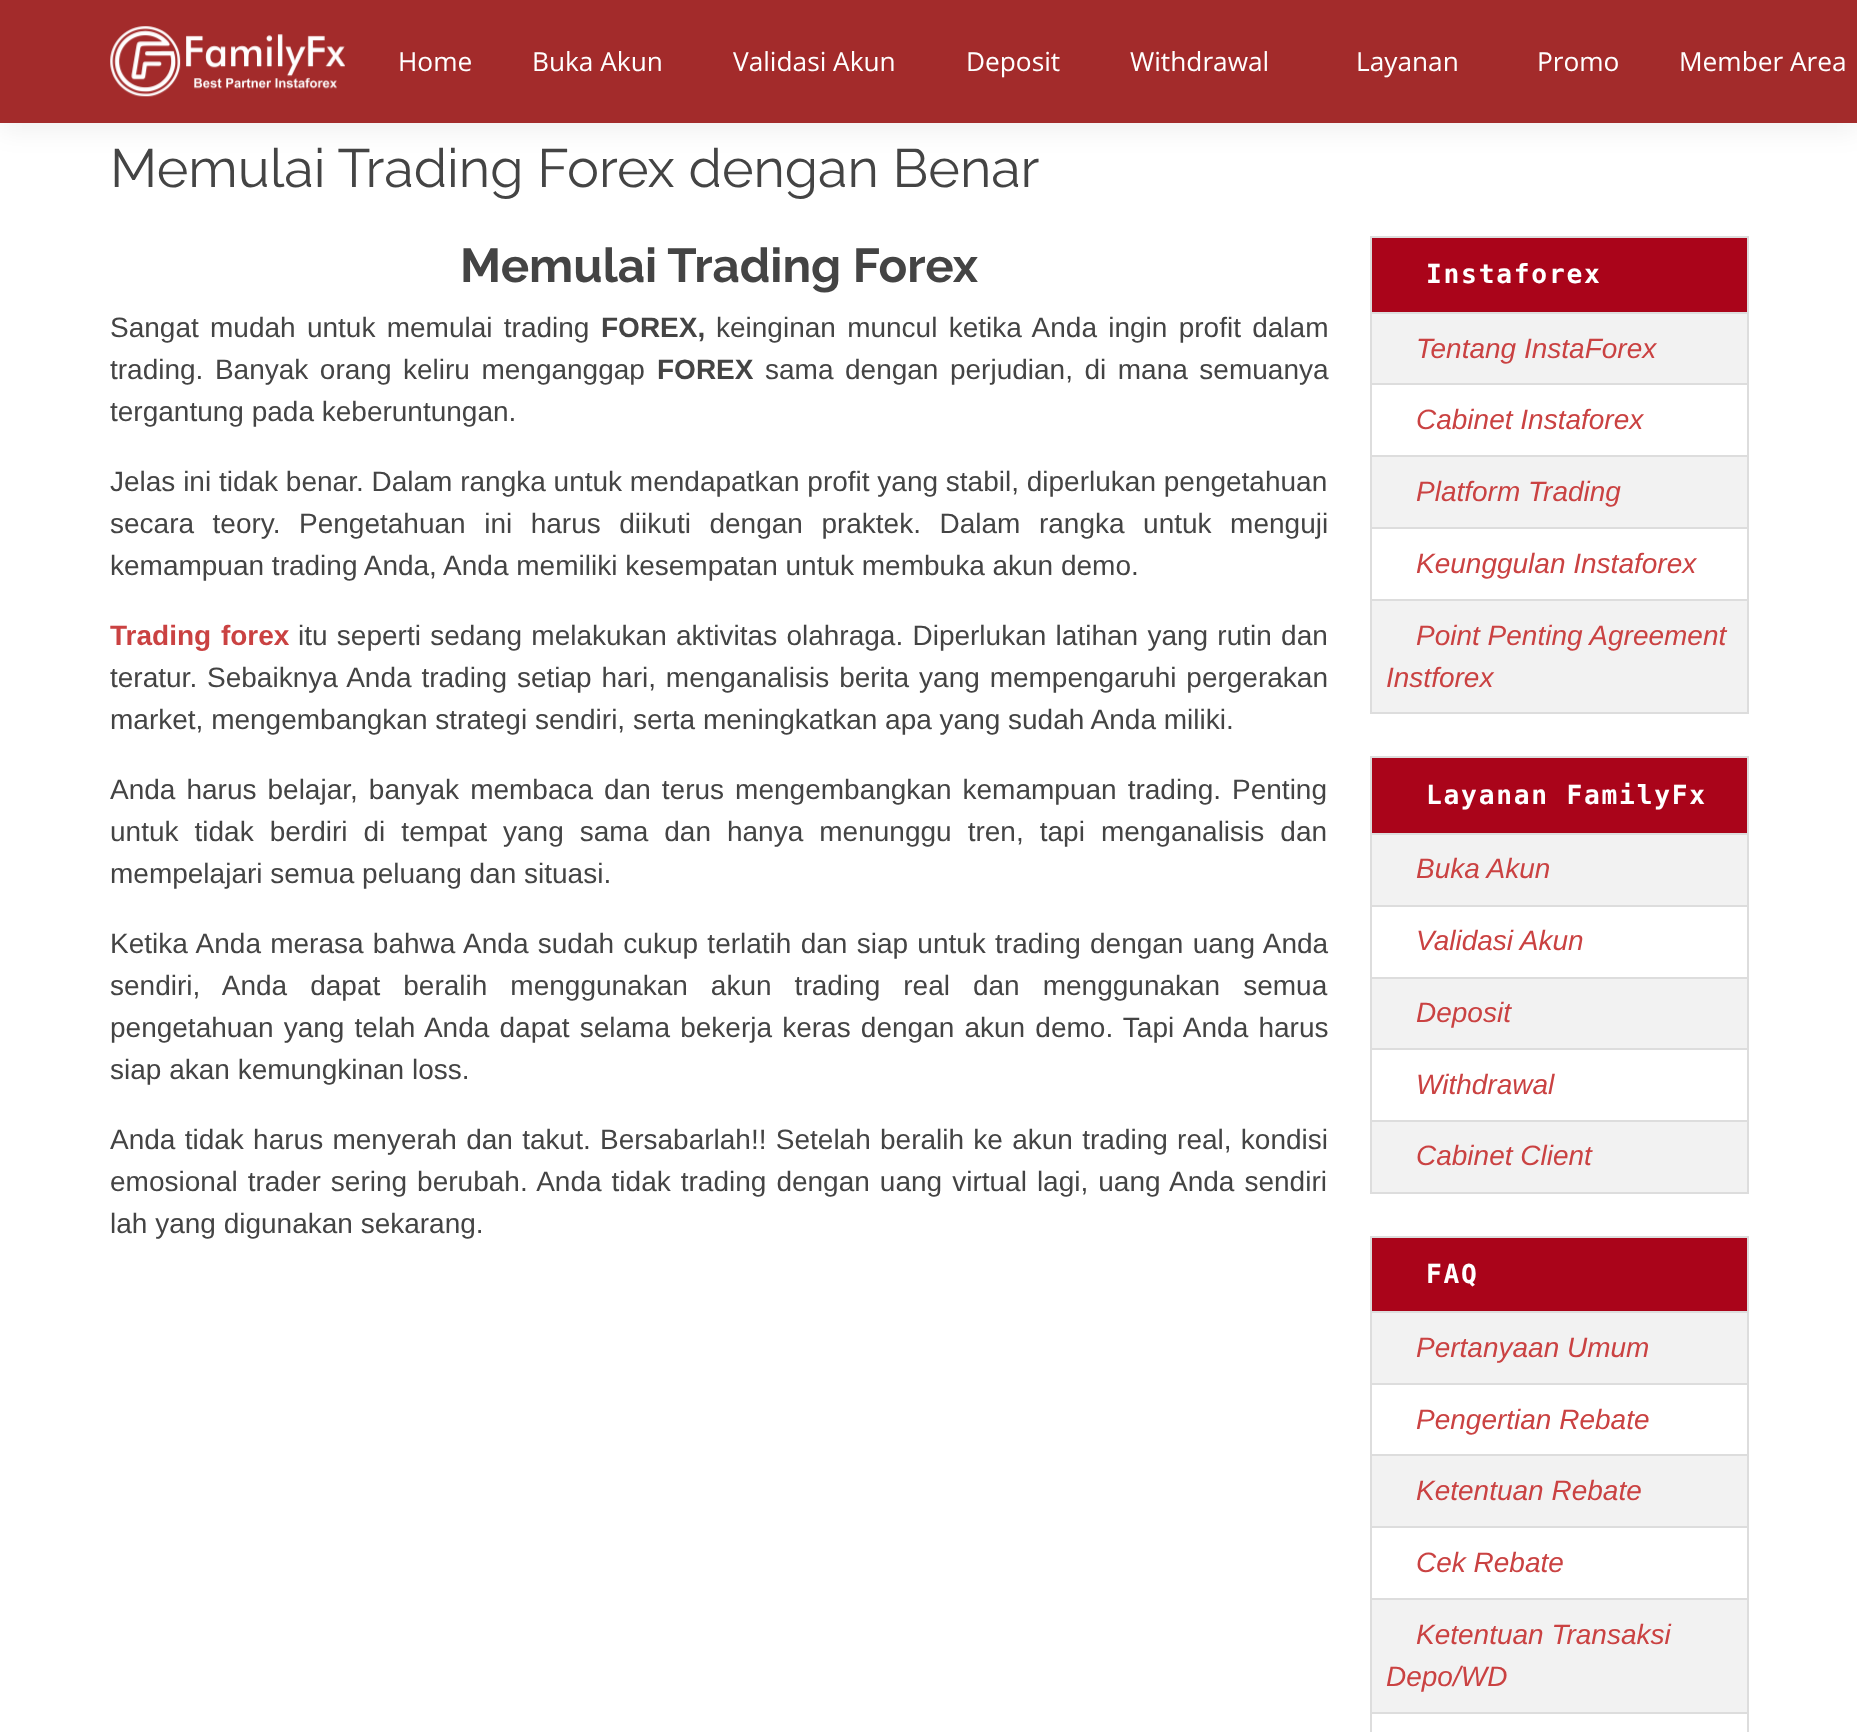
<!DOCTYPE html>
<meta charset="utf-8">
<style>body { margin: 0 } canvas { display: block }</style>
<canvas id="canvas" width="1857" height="1732"></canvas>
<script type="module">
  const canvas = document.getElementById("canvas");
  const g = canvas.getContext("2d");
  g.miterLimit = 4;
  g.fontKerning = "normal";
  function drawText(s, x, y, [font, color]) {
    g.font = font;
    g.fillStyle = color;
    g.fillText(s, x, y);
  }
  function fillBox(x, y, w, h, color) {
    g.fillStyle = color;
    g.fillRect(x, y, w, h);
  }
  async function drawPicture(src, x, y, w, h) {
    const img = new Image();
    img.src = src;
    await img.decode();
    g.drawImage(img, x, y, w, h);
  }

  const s1 = ["26.25px Open Sans", "#FFFFFF"];
  const s2 = ["53.8px Raleway", "#444444"];
  const s3 = ["bold 47.5px Raleway", "#444444"];
  const s4 = ["28px Liberation Sans", "#444444"];
  const s5 = ["bold 28px Liberation Sans", "#444444"];
  const s6 = ["bold 28px Liberation Sans", "#CA4242"];
  const s7 = ["bold 26.25px DejaVu Sans Mono", "#FFFFFF"];
  const s8 = ["italic 28px Liberation Sans", "#CA4242"];

  fillBox(0, 0, 1857, 1732, "#FFFFFF");
  g.fillStyle = "rgba(0, 0, 0, 0.06)";
  g.filter = "blur(13px)";
  g.beginPath();
  g.rect(0, 9, 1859, 122);
  g.fill();
  g.filter = "none";
  fillBox(0, 0, 1857, 123, "#A32B2B");
  await drawPicture("pic1.png", 110, 26, 235, 71);
  drawText("Home", 398, 71, s1);
  drawText("Buka Akun", 532, 71, s1);
  drawText("Validasi Akun", 733, 71, s1);
  drawText("Deposit", 966, 71, s1);
  drawText("Withdrawal", 1130, 71, s1);
  drawText("Layanan", 1356, 71, s1);
  drawText("Promo", 1537, 71, s1);
  drawText("Member Area", 1679, 71, s1);
  drawText("Memulai Trading Forex dengan Benar", 110, 187, s2);
  drawText("Memulai Trading Forex", 460, 282, s3);
  g.wordSpacing = "3.5px";
  drawText("Sangat mudah untuk memulai trading", 110, 337, s4);
  g.wordSpacing = "0px";
  drawText("FOREX,", 601, 337, s5);
  g.wordSpacing = "3.5px";
  drawText("keinginan muncul ketika Anda ingin profit dalam", 716, 337, s4);
  g.wordSpacing = "3.75px";
  drawText("trading. Banyak orang keliru menganggap", 110, 379, s4);
  g.wordSpacing = "0px";
  drawText("FOREX", 657, 379, s5);
  g.wordSpacing = "3.75px";
  drawText("sama dengan perjudian, di mana semuanya", 765, 379, s4);
  g.wordSpacing = "0px";
  drawText("tergantung pada keberuntungan.", 110, 421, s4);
  drawText("Jelas ini tidak benar. Dalam rangka untuk mendapatkan profit yang stabil, diperlukan pengetahuan", 110, 491, s4);
  g.wordSpacing = "10.75px";
  drawText("secara teory. Pengetahuan ini harus diikuti dengan praktek. Dalam rangka untuk menguji", 110, 533, s4);
  g.wordSpacing = "0px";
  drawText("kemampuan trading Anda, Anda memiliki kesempatan untuk membuka akun demo.", 110, 575, s4);
  g.wordSpacing = "2px";
  drawText("Trading forex", 110, 645, s6);
  g.wordSpacing = "1.5px";
  drawText("itu seperti sedang melakukan aktivitas olahraga. Diperlukan latihan yang rutin dan", 298, 645, s4);
  g.wordSpacing = "2.1px";
  drawText("teratur. Sebaiknya Anda trading setiap hari, menganalisis berita yang mempengaruhi pergerakan", 110, 687, s4);
  g.wordSpacing = "0px";
  drawText("market, mengembangkan strategi sendiri, serta meningkatkan apa yang sudah Anda miliki.", 110, 729, s4);
  g.wordSpacing = "3.25px";
  drawText("Anda harus belajar, banyak membaca dan terus mengembangkan kemampuan trading. Penting", 110, 799, s4);
  g.wordSpacing = "8.25px";
  drawText("untuk tidak berdiri di tempat yang sama dan hanya menunggu tren, tapi menganalisis dan", 110, 841, s4);
  g.wordSpacing = "0px";
  drawText("mempelajari semua peluang dan situasi.", 110, 883, s4);
  g.wordSpacing = "1.5px";
  drawText("Ketika Anda merasa bahwa Anda sudah cukup terlatih dan siap untuk trading dengan uang Anda", 110, 953, s4);
  g.wordSpacing = "15.25px";
  drawText("sendiri, Anda dapat beralih menggunakan akun trading real dan menggunakan semua", 110, 995, s4);
  g.wordSpacing = "2.4px";
  drawText("pengetahuan yang telah Anda dapat selama bekerja keras dengan akun demo. Tapi Anda harus", 110, 1037, s4);
  g.wordSpacing = "0px";
  drawText("siap akan kemungkinan loss.", 110, 1079, s4);
  g.wordSpacing = "1.5px";
  drawText("Anda tidak harus menyerah dan takut. Bersabarlah!! Setelah beralih ke akun trading real, kondisi", 110, 1149, s4);
  g.wordSpacing = "2.25px";
  drawText("emosional trader sering berubah. Anda tidak trading dengan uang virtual lagi, uang Anda sendiri", 110, 1191, s4);
  g.wordSpacing = "0px";
  drawText("lah yang digunakan sekarang.", 110, 1233, s4);
  fillBox(1372, 238, 375, 74, "#AA041A");
  fillBox(1370, 236, 378, 2, "#DDDDDD");
  fillBox(1370, 312, 378, 2, "#DDDDDD");
  fillBox(1370, 383, 378, 2, "#DDDDDD");
  fillBox(1370, 455, 378, 2, "#DDDDDD");
  fillBox(1370, 527, 378, 2, "#DDDDDD");
  fillBox(1370, 599, 378, 2, "#DDDDDD");
  fillBox(1747, 599, 2, 115, "#DDDDDD");
  fillBox(1747, 527, 2, 73, "#DDDDDD");
  fillBox(1747, 455, 2, 74, "#DDDDDD");
  fillBox(1747, 383, 2, 74, "#DDDDDD");
  fillBox(1747, 312, 2, 73, "#DDDDDD");
  fillBox(1747, 236, 2, 77, "#DDDDDD");
  fillBox(1370, 712, 378, 2, "#DDDDDD");
  fillBox(1370, 599, 2, 115, "#DDDDDD");
  fillBox(1370, 527, 2, 73, "#DDDDDD");
  fillBox(1370, 455, 2, 74, "#DDDDDD");
  fillBox(1370, 383, 2, 74, "#DDDDDD");
  fillBox(1370, 312, 2, 73, "#DDDDDD");
  fillBox(1370, 236, 2, 77, "#DDDDDD");
  g.letterSpacing = "1.75px";
  drawText("Instaforex", 1426, 283, s7);
  fillBox(1372, 314, 375, 69, "#F2F2F2");
  g.letterSpacing = "0px";
  drawText("Tentang InstaForex", 1416, 358, s8);
  drawText("Cabinet Instaforex", 1416, 429, s8);
  fillBox(1372, 457, 375, 70, "#F2F2F2");
  drawText("Platform Trading", 1416, 501, s8);
  drawText("Keunggulan Instaforex", 1416, 573, s8);
  fillBox(1372, 601, 375, 111, "#F2F2F2");
  drawText("Point Penting Agreement", 1416, 645, s8);
  drawText("Instforex", 1386, 687, s8);
  fillBox(1372, 758, 375, 75, "#AA041A");
  fillBox(1370, 756, 378, 2, "#DDDDDD");
  fillBox(1370, 833, 378, 2, "#DDDDDD");
  fillBox(1370, 905, 378, 2, "#DDDDDD");
  fillBox(1370, 977, 378, 2, "#DDDDDD");
  fillBox(1370, 1048, 378, 2, "#DDDDDD");
  fillBox(1370, 1120, 378, 2, "#DDDDDD");
  fillBox(1747, 1120, 2, 74, "#DDDDDD");
  fillBox(1747, 1048, 2, 74, "#DDDDDD");
  fillBox(1747, 977, 2, 73, "#DDDDDD");
  fillBox(1747, 905, 2, 73, "#DDDDDD");
  fillBox(1747, 833, 2, 74, "#DDDDDD");
  fillBox(1747, 756, 2, 79, "#DDDDDD");
  fillBox(1370, 1192, 378, 2, "#DDDDDD");
  fillBox(1370, 1120, 2, 74, "#DDDDDD");
  fillBox(1370, 1048, 2, 74, "#DDDDDD");
  fillBox(1370, 977, 2, 73, "#DDDDDD");
  fillBox(1370, 905, 2, 73, "#DDDDDD");
  fillBox(1370, 833, 2, 74, "#DDDDDD");
  fillBox(1370, 756, 2, 79, "#DDDDDD");
  g.letterSpacing = "1.75px";
  drawText("Layanan FamilyFx", 1426, 804, s7);
  fillBox(1372, 835, 375, 70, "#F2F2F2");
  g.letterSpacing = "0px";
  drawText("Buka Akun", 1416, 878, s8);
  drawText("Validasi Akun", 1416, 950, s8);
  fillBox(1372, 979, 375, 69, "#F2F2F2");
  drawText("Deposit", 1416, 1022, s8);
  drawText("Withdrawal", 1416, 1094, s8);
  fillBox(1372, 1122, 375, 70, "#F2F2F2");
  drawText("Cabinet Client", 1416, 1165, s8);
  fillBox(1372, 1238, 375, 73, "#AA041A");
  fillBox(1370, 1236, 378, 2, "#DDDDDD");
  fillBox(1370, 1311, 378, 2, "#DDDDDD");
  fillBox(1370, 1383, 378, 2, "#DDDDDD");
  fillBox(1370, 1454, 378, 2, "#DDDDDD");
  fillBox(1370, 1526, 378, 2, "#DDDDDD");
  fillBox(1370, 1598, 378, 2, "#DDDDDD");
  fillBox(1370, 1712, 378, 2, "#DDDDDD");
  fillBox(1747, 1712, 2, 20, "#DDDDDD");
  fillBox(1747, 1598, 2, 115, "#DDDDDD");
  fillBox(1747, 1526, 2, 74, "#DDDDDD");
  fillBox(1747, 1454, 2, 74, "#DDDDDD");
  fillBox(1747, 1383, 2, 73, "#DDDDDD");
  fillBox(1747, 1311, 2, 73, "#DDDDDD");
  fillBox(1747, 1236, 2, 77, "#DDDDDD");
  fillBox(1370, 1712, 2, 20, "#DDDDDD");
  fillBox(1370, 1598, 2, 115, "#DDDDDD");
  fillBox(1370, 1526, 2, 74, "#DDDDDD");
  fillBox(1370, 1454, 2, 74, "#DDDDDD");
  fillBox(1370, 1383, 2, 73, "#DDDDDD");
  fillBox(1370, 1311, 2, 73, "#DDDDDD");
  fillBox(1370, 1236, 2, 77, "#DDDDDD");
  g.letterSpacing = "1.75px";
  drawText("FAQ", 1426, 1283, s7);
  fillBox(1372, 1313, 375, 70, "#F2F2F2");
  g.letterSpacing = "0px";
  drawText("Pertanyaan Umum", 1416, 1357, s8);
  drawText("Pengertian Rebate", 1416, 1429, s8);
  fillBox(1372, 1456, 375, 70, "#F2F2F2");
  drawText("Ketentuan Rebate", 1416, 1500, s8);
  drawText("Cek Rebate", 1416, 1572, s8);
  fillBox(1372, 1600, 375, 112, "#F2F2F2");
  drawText("Ketentuan Transaksi", 1416, 1644, s8);
  drawText("Depo/WD", 1386, 1686, s8);
</script>
